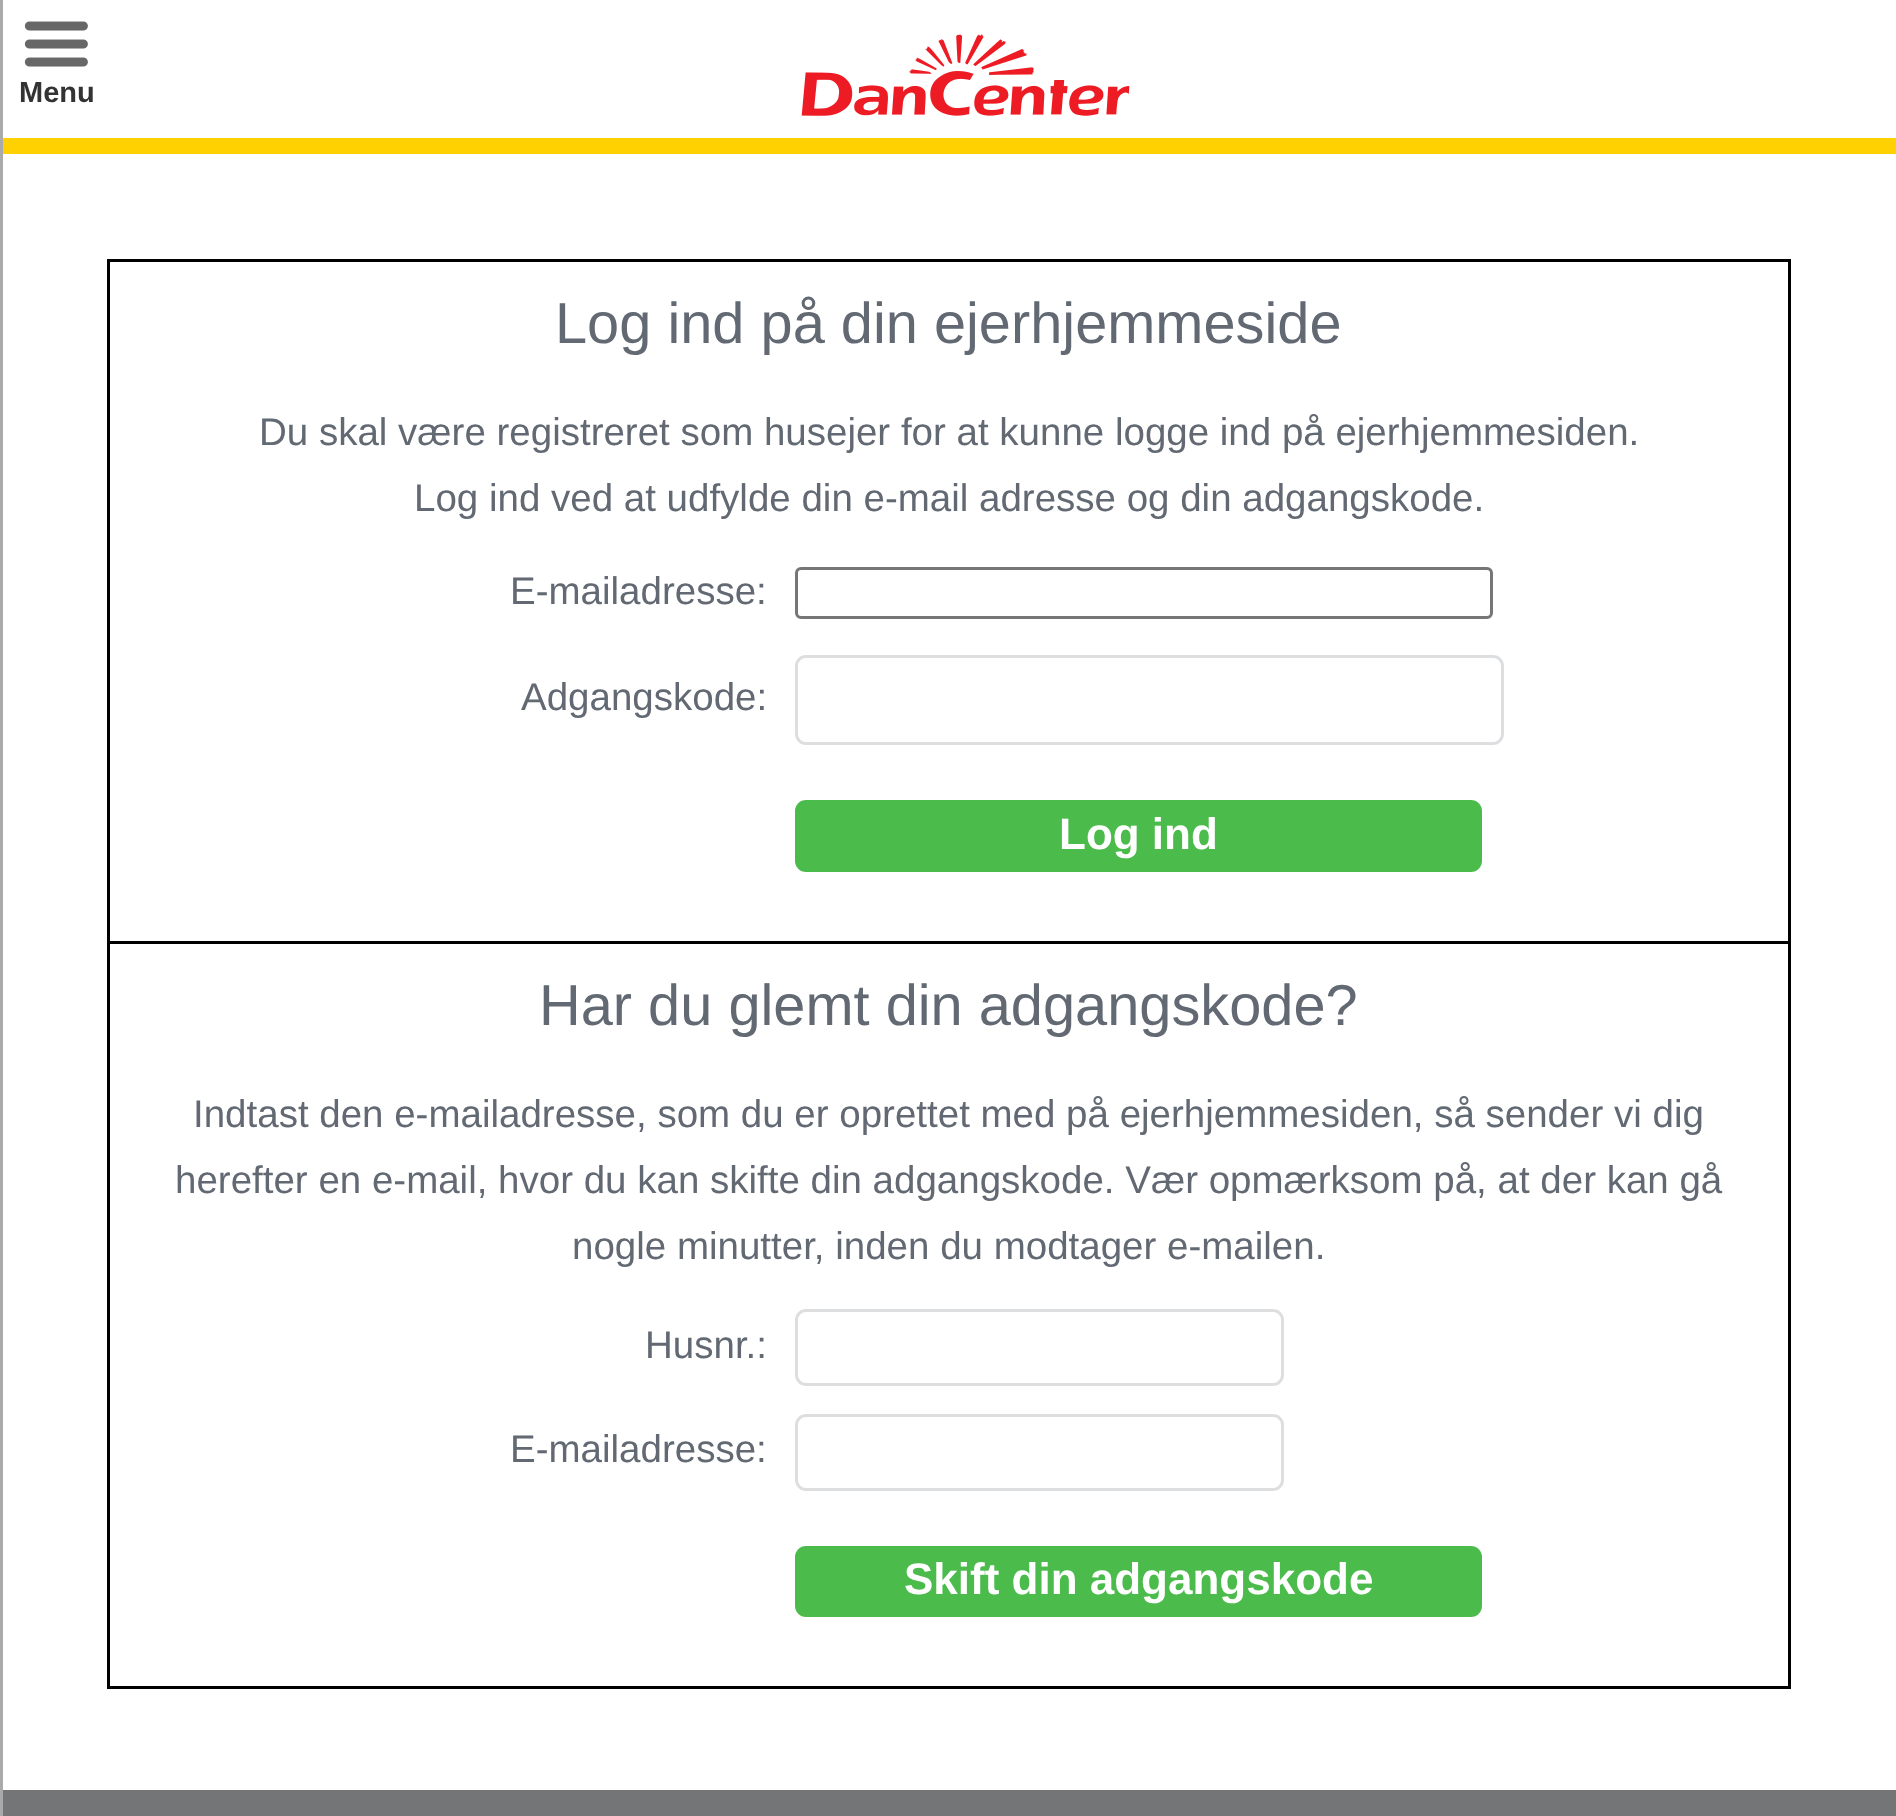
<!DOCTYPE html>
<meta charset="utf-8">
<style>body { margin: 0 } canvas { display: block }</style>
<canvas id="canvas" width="1896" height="1816"></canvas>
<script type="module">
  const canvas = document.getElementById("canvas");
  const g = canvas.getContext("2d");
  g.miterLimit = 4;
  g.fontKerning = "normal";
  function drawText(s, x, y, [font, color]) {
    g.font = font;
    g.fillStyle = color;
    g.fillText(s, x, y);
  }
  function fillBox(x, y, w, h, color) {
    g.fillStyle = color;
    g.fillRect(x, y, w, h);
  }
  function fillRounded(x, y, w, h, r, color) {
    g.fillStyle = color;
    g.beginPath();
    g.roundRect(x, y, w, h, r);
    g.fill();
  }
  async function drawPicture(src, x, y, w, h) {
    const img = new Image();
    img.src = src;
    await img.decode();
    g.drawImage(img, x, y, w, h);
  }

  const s1 = ["bold 29px Liberation Sans", "#333333"];
  const s2 = ["57.75px Liberation Sans", "#626973"];
  const s3 = ["38.5px Liberation Sans", "#626973"];
  const s4 = ["bold 44px Liberation Sans", "#FFFFFF"];

  fillBox(0, 0, 1896, 1816, "#FFFFFF");
  fillBox(3, 138, 1893, 16, "#FFD100");
  fillBox(0, 0, 3, 1816, "#AAAAAA");
  await drawPicture("pic1.png", 24, 21, 64, 46);
  drawText("Menu", 19, 102, s1);
  await drawPicture("pic2.png", 801, 34, 329, 82);
  fillBox(107, 259, 1683, 3, "#000000");
  fillBox(107, 941, 1683, 3, "#000000");
  fillBox(1788, 941, 3, 748, "#000000");
  fillBox(1788, 259, 3, 684, "#000000");
  fillBox(107, 1686, 1683, 3, "#000000");
  fillBox(107, 941, 3, 748, "#000000");
  fillBox(107, 259, 3, 684, "#000000");
  drawText("Log ind på din ejerhjemmeside", 555, 343, s2);
  drawText("Du skal være registreret som husejer for at kunne logge ind på ejerhjemmesiden.", 259, 445, s3);
  drawText("Log ind ved at udfylde din e-mail adresse og din adgangskode.", 414, 511, s3);
  drawText("E-mailadresse:", 510, 604, s3);
  g.beginPath();
  g.roundRect(796.5, 568.5, 695, 49, 4.5);
  g.strokeStyle = "#767676";
  g.lineWidth = 3;
  g.stroke();
  drawText("Adgangskode:", 521, 710, s3);
  g.beginPath();
  g.roundRect(796.5, 656.5, 706, 87, 9.5);
  g.strokeStyle = "#DDDEE0";
  g.stroke();
  fillRounded(795, 800, 687, 72, 11, "#4BBB4B");
  drawText("Log ind", 1059, 849, s4);
  drawText("Har du glemt din adgangskode?", 539, 1025, s2);
  drawText("Indtast den e-mailadresse, som du er oprettet med på ejerhjemmesiden, så sender vi dig", 193, 1127, s3);
  drawText("herefter en e-mail, hvor du kan skifte din adgangskode. Vær opmærksom på, at der kan gå", 175, 1193, s3);
  drawText("nogle minutter, inden du modtager e-mailen.", 572, 1259, s3);
  drawText("Husnr.:", 645, 1358, s3);
  g.beginPath();
  g.roundRect(796.5, 1310.5, 486, 74, 9.5);
  g.stroke();
  drawText("E-mailadresse:", 510, 1462, s3);
  g.beginPath();
  g.roundRect(796.5, 1415.5, 486, 74, 9.5);
  g.stroke();
  fillRounded(795, 1546, 687, 71, 11, "#4BBB4B");
  drawText("Skift din adgangskode", 904, 1594, s4);
  fillBox(3, 1790, 1893, 26, "#737577");
</script>
